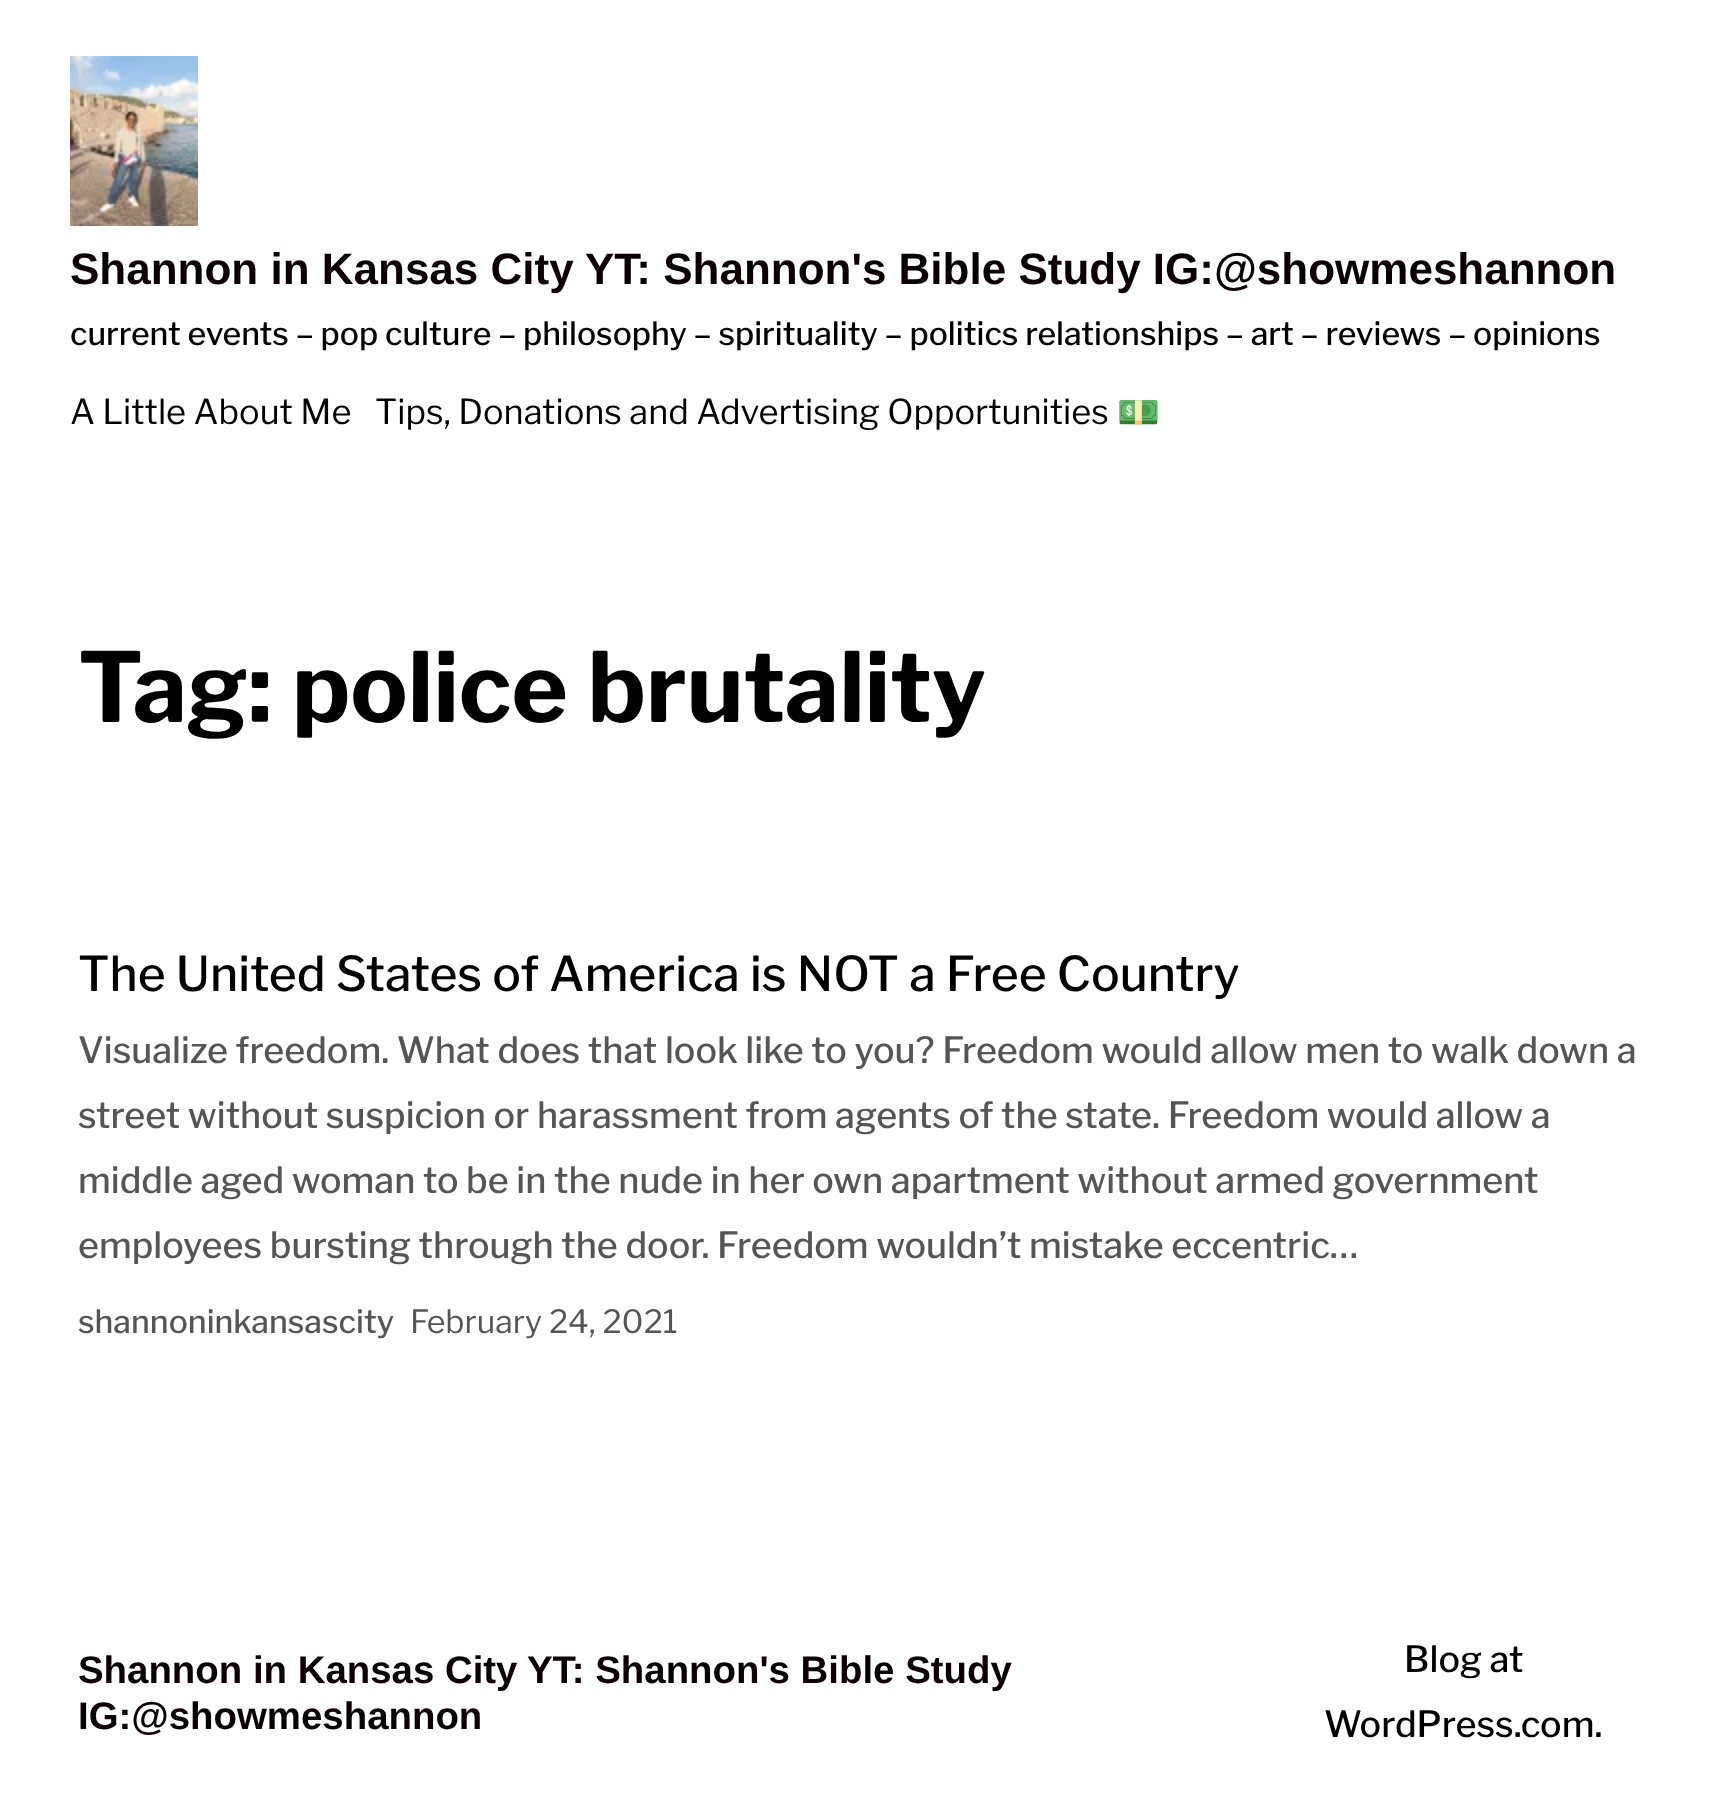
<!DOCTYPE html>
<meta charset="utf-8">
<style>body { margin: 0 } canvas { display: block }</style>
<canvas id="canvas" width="1719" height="1808"></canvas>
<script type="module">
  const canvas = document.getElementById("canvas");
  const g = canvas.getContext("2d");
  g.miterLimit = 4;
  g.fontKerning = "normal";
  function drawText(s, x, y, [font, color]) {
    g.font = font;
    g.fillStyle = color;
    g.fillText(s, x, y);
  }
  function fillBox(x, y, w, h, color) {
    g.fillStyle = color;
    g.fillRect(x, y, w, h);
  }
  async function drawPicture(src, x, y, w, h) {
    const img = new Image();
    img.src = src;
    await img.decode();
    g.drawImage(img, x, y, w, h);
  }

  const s1 = ["bold 44px Liberation Sans", "#0B0003"];
  const s2 = ["500 32px Libre Franklin", "#000000"];
  const s3 = ["34.4px Libre Franklin", "#000000"];
  const s4 = ["34.4px Noto Color Emoji", "#000000"];
  const s5 = ["bold 96px Libre Franklin", "#000000"];
  const s6 = ["500 48px Libre Franklin", "#000000"];
  const s7 = ["500 36px Libre Franklin", "#555555"];
  const s8 = ["500 32px Libre Franklin", "#555555"];
  const s9 = ["32px Libre Franklin", "#555555"];
  const s10 = ["bold 38.4px Liberation Sans", "#0B0003"];
  const s11 = ["500 36px Libre Franklin", "#000000"];

  fillBox(0, 0, 1719, 1808, "#FFFFFF");
  await drawPicture("pic1.png", 70, 56, 128, 170);
  drawText("Shannon in Kansas City", 70, 284, s1);
  drawText("YT: Shannon's Bible Study IG:@showmeshannon", 585, 284, s1);
  drawText("current events – pop culture – philosophy – spirituality – politics relationships – art – reviews – opinions", 70, 345, s2);
  drawText("A Little About Me", 70, 424, s3);
  drawText("Tips, Donations and Advertising Opportunities", 375, 424, s3);
  drawText("💵", 1117, 424, s4);
  drawText("Tag: police brutality", 78, 722, s5);
  drawText("The United States of America is NOT a Free Country", 78, 991, s6);
  drawText("Visualize freedom. What does that look like to you? Freedom would allow men to walk down a", 78, 1063, s7);
  drawText("street without suspicion or harassment from agents of the state. Freedom would allow a", 78, 1128, s7);
  drawText("middle aged woman to be in the nude in her own apartment without armed government", 78, 1193, s7);
  drawText("employees bursting through the door. Freedom wouldn’t mistake eccentric…", 78, 1258, s7);
  drawText("shannoninkansascity", 78, 1333, s8);
  drawText("February 24, 2021", 410, 1333, s9);
  drawText("Shannon in Kansas City", 78, 1683, s10);
  drawText("YT: Shannon's Bible Study", 527, 1683, s10);
  drawText("IG:@showmeshannon", 78, 1729, s10);
  drawText("Blog at", 1404, 1672, s11);
  drawText("WordPress.com.", 1324, 1737, s11);
</script>
